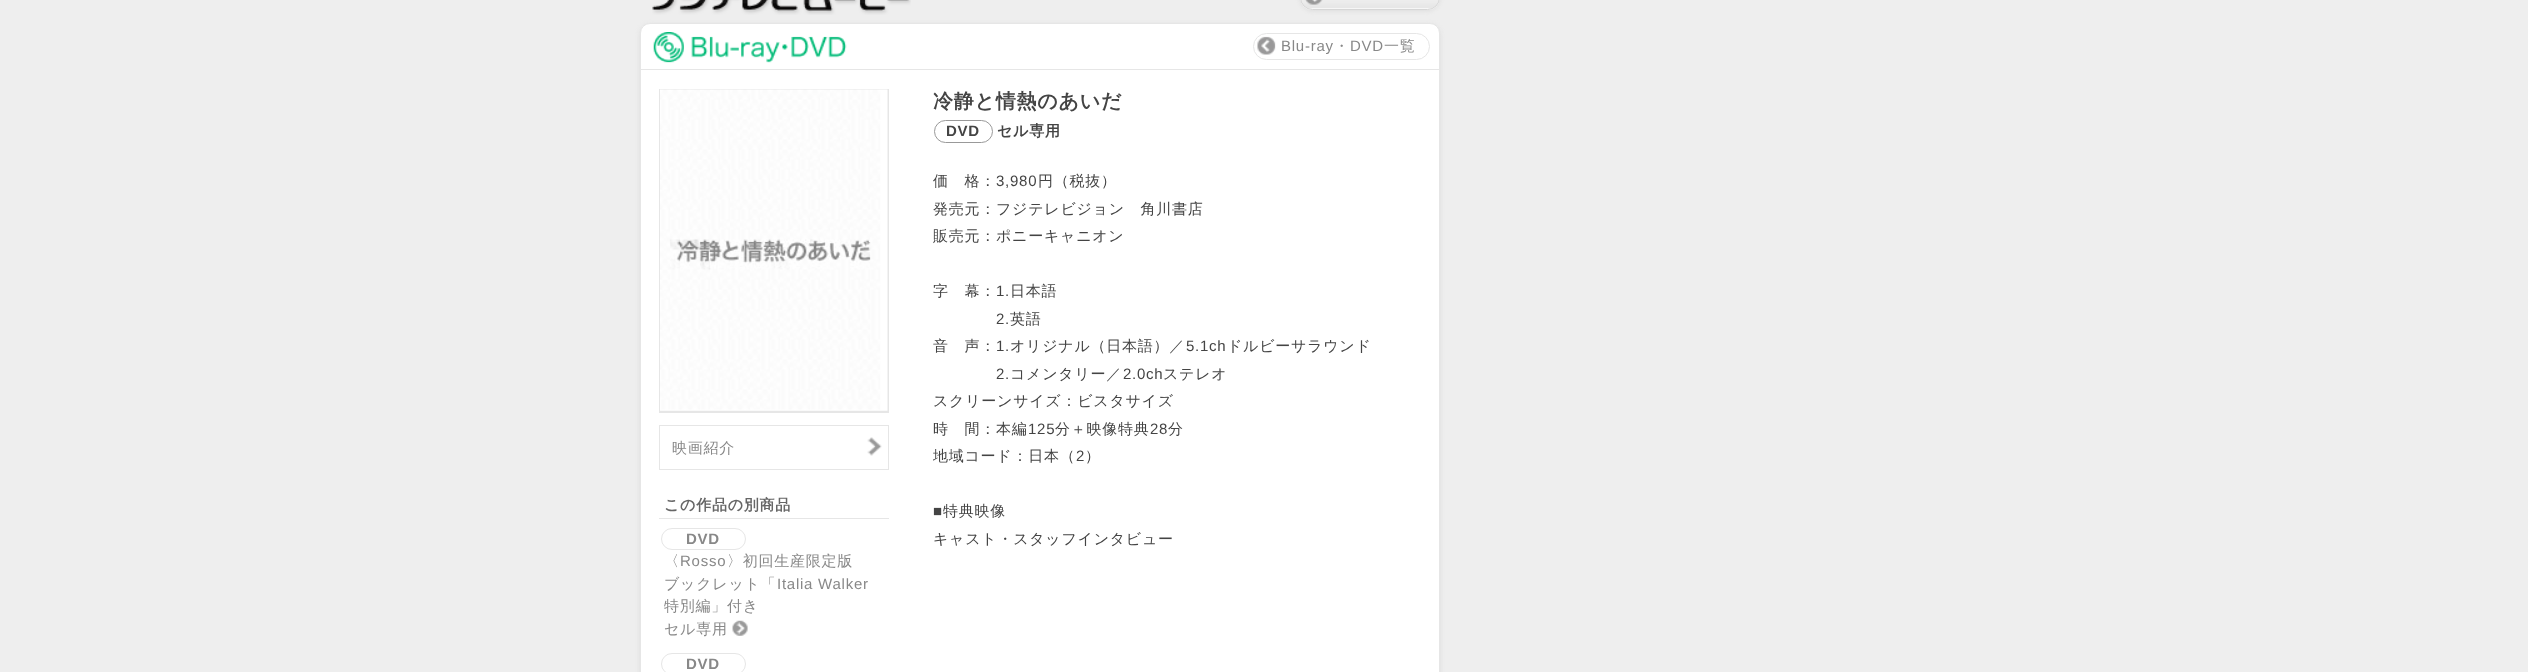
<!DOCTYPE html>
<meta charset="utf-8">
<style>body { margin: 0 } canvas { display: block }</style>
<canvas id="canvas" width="2528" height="672"></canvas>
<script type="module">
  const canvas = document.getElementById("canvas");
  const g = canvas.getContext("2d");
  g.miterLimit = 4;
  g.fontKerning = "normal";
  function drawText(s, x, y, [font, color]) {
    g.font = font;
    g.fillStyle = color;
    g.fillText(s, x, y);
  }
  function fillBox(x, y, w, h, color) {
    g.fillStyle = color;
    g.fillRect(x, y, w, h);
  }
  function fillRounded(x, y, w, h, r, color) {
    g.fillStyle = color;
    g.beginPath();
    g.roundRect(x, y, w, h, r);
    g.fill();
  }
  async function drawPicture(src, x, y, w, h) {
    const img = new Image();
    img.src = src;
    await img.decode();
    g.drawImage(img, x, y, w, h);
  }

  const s1 = ["15px Liberation Sans", "#888888"];
  const s2 = ["500 15px WenQuanYi Zen Hei", "#888888"];
  const s3 = ["bold 15px WenQuanYi Zen Hei", "#666666"];
  const s4 = ["bold 15px Liberation Sans", "#888888"];
  const s5 = ["bold 20px WenQuanYi Zen Hei", "#444444"];
  const s6 = ["bold 15px Liberation Sans", "#444444"];
  const s7 = ["bold 15px WenQuanYi Zen Hei", "#444444"];
  const s8 = ["500 15px WenQuanYi Zen Hei", "#444444"];
  const s9 = ["15px Liberation Sans", "#444444"];

  fillBox(0, 0, 2528, 672, "#EEEEEE");
  await drawPicture("pic1.png", 652, 0, 259, 15);
  g.fillStyle = "#DCDCDC";
  g.filter = "blur(2px)";
  g.beginPath();
  g.roundRect(1300, -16, 140, 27, 13.5);
  g.fill();
  g.filter = "none";
  fillRounded(1300, -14, 140, 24, 13.5, "#F6F6F6");
  await drawPicture("pic2.png", 1301, 0, 138, 8);
  g.beginPath();
  g.roundRect(1300.5, -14.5, 139, 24, 13);
  g.strokeStyle = "#D6D6D6";
  g.stroke();
  g.fillStyle = "#DCDCDC";
  g.filter = "blur(2.5px)";
  g.beginPath();
  g.roundRect(640, 25, 800, 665, 10);
  g.fill();
  g.filter = "none";
  g.fillStyle = "#FFFFFF";
  g.beginPath();
  g.roundRect(640.5, 23.5, 799, 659, 9.5);
  g.fill();
  g.strokeStyle = "#E6E6E6";
  g.stroke();
  fillBox(641, 69, 798, 1, "#E6E6E6");
  await drawPicture("pic3.png", 653, 32, 194, 31);
  await drawPicture("pic4.png", 1257, 36, 19, 19);
  g.beginPath();
  g.roundRect(1253.5, 33.5, 176, 26, 13);
  g.stroke();
  g.letterSpacing = "0.75px";
  drawText("Blu-ray", 1281, 51, s1);
  drawText("・", 1334, 51, s2);
  drawText("DVD", 1350, 51, s1);
  drawText("一覧", 1384, 51, s2);
  fillBox(659, 89, 230, 324, "#E6E6E6");
  await drawPicture("pic5.png", 660, 89, 228, 322);
  await drawPicture("pic6.png", 867, 437, 15, 19);
  g.strokeRect(659.5, 425.5, 229, 44);
  drawText("映画紹介", 672, 453, s2);
  fillBox(659, 518, 230, 1, "#E6E6E6");
  drawText("この作品の別商品", 664, 510, s3);
  g.beginPath();
  g.roundRect(661.5, 528.5, 84, 21, 10.5);
  g.stroke();
  drawText("DVD", 686, 544, s4);
  drawText("〈", 664, 566, s2);
  drawText("Rosso", 680, 566, s1);
  drawText("〉初回生産限定版", 727, 566, s2);
  drawText("ブックレット「", 664, 589, s2);
  drawText("Italia Walker", 777, 589, s1);
  drawText("特別編」付き", 664, 611, s2);
  drawText("セル専用", 664, 634, s2);
  await drawPicture("pic7.png", 732, 620, 16, 16);
  g.beginPath();
  g.roundRect(661.5, 653.5, 84, 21, 10.5);
  g.stroke();
  drawText("DVD", 686, 669, s4);
  drawText("冷静と情熱のあいだ", 933, 108, s5);
  g.beginPath();
  g.roundRect(934.5, 120.5, 58, 22, 11);
  g.strokeStyle = "#999999";
  g.stroke();
  drawText("DVD", 946, 136, s6);
  drawText("セル専用", 997, 136, s7);
  drawText("価　格：", 933, 186, s8);
  drawText("3,980", 996, 186, s9);
  drawText("円（税抜）", 1038, 186, s8);
  drawText("発売元：フジテレビジョン　角川書店", 933, 214, s8);
  drawText("販売元：ポニーキャニオン", 933, 241, s8);
  drawText("字　幕：", 933, 296, s8);
  drawText("1.", 996, 296, s9);
  drawText("日本語", 1010, 296, s8);
  drawText("2.", 996, 324, s9);
  drawText("英語", 1010, 324, s8);
  drawText("音　声：", 933, 351, s8);
  drawText("1.", 996, 351, s9);
  drawText("オリジナル（日本語）／", 1010, 351, s8);
  drawText("5.1ch", 1186, 351, s9);
  drawText("ドルビーサラウンド", 1227, 351, s8);
  drawText("2.", 996, 379, s9);
  drawText("コメンタリー／", 1010, 379, s8);
  drawText("2.0ch", 1123, 379, s9);
  drawText("ステレオ", 1163, 379, s8);
  drawText("スクリーンサイズ：ビスタサイズ", 933, 406, s8);
  drawText("時　間：本編", 933, 434, s8);
  drawText("125", 1028, 434, s9);
  drawText("分＋映像特典", 1055, 434, s8);
  drawText("28", 1150, 434, s9);
  drawText("分", 1168, 434, s8);
  drawText("地域コード：日本（", 933, 461, s8);
  drawText("2", 1076, 461, s9);
  drawText("）", 1085, 461, s8);
  drawText("■", 933, 516, s9);
  drawText("特典映像", 943, 516, s8);
  drawText("キャスト・スタッフインタビュー", 933, 544, s8);
</script>
